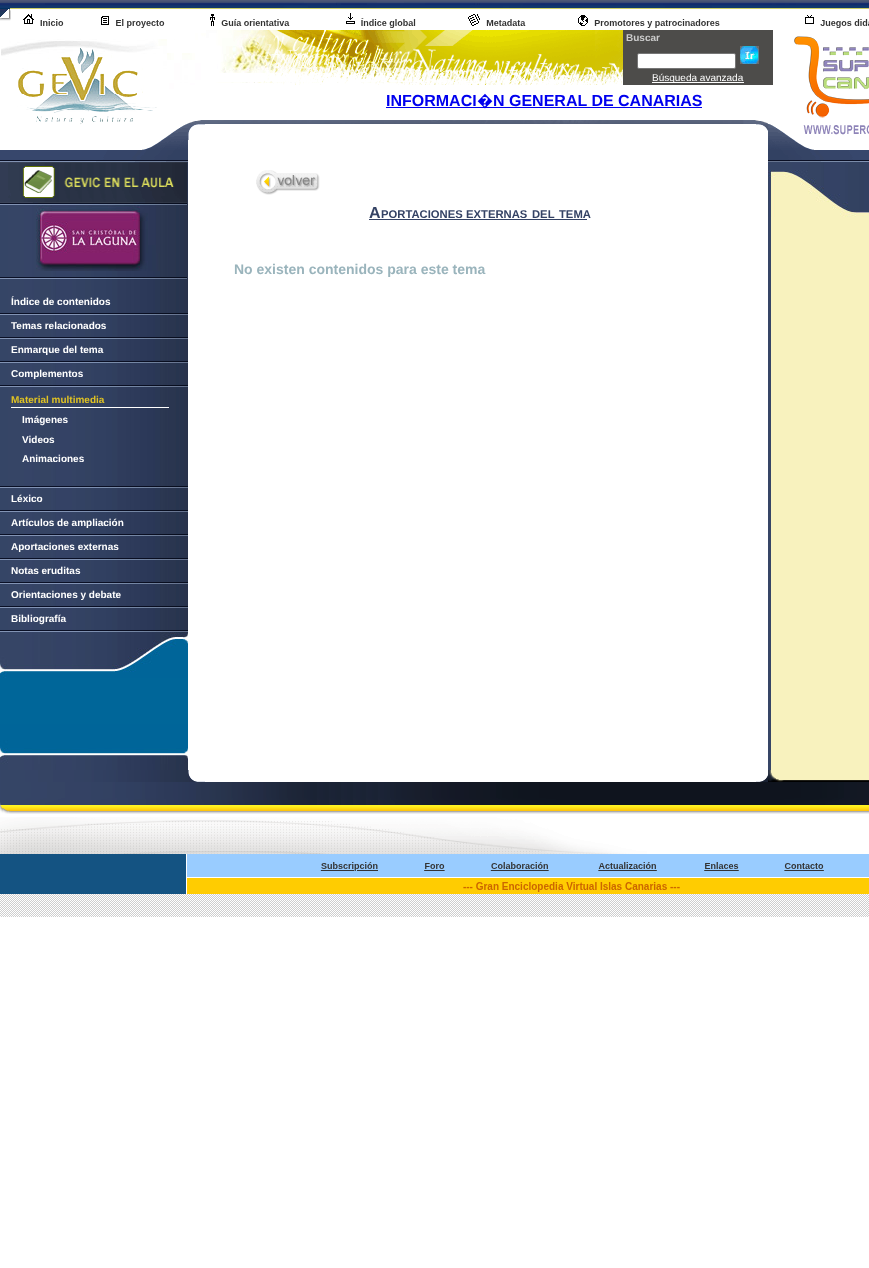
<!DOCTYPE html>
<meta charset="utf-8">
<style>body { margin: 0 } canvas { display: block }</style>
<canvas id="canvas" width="869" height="1268"></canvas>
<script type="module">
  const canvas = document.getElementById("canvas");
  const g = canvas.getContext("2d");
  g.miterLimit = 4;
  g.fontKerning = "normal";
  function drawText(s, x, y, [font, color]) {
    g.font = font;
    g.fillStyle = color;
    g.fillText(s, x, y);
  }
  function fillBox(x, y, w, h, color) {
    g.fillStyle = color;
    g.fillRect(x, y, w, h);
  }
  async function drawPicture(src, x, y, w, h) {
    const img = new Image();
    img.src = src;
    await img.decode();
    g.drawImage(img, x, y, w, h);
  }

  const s1 = ["bold 10px Liberation Sans", "#CCCCCC"];
  const s2 = ["10px Liberation Sans", "#FFFFFF"];
  const s3 = ["bold 16px Liberation Sans", "#0000EE"];
  const s4 = ["bold 16px Noto Sans", "#0000EE"];
  const s5 = ["bold 16px Liberation Sans", "#344264"];
  const s6 = ["bold 11.25px Liberation Sans", "#344264"];
  const s7 = ["bold 14px Liberation Sans", "#9AB4BC"];
  const s8 = ["bold 10px Liberation Sans", "#FFFFFF"];
  const s9 = ["bold 10px Liberation Sans", "#E1C323"];

  fillBox(0, 0, 869, 1268, "#FFFFFF");
  await drawPicture("pic1.png", 0, 0, 869, 28);
  await drawPicture("pic2.png", 1, 39, 187, 85);
  await drawPicture("pic3.png", 188, 30, 435, 55);
  fillBox(623, 30, 150, 55, "#4D4C4A");
  drawText("Buscar", 626, 41, s1);
  g.fillStyle = "#FFFFFF";
  g.beginPath();
  g.roundRect(637.5, 53.5, 98, 15, 1.5);
  g.fill();
  g.strokeStyle = "#767676";
  g.stroke();
  await drawPicture("pic4.png", 740, 46, 19, 18);
  fillBox(652, 82, 92, 1, "#FFFFFF");
  drawText("Búsqueda avanzada", 652, 81, s2);
  await drawPicture("pic5.png", 794, 36, 75, 82);
  drawText("INFORMACI", 386, 106, s3);
  fillBox(386, 107, 316, 1, "#0000EE");
  drawText("�", 477, 106, s4);
  drawText("N GENERAL DE CANARIAS", 493, 106, s3);
  await drawPicture("pic6.png", 188, 120, 581, 4);
  await drawPicture("pic7.png", 0, 124, 188, 38);
  await drawPicture("pic8.png", 188, 124, 17, 16);
  await drawPicture("pic9.png", 756, 124, 12, 7);
  await drawPicture("pic10.png", 768, 124, 101, 38);
  await drawPicture("pic11.png", 256, 170, 64, 25);
  drawText("A", 369, 218, s5);
  drawText("PORTACIONES", 381, 218, s6);
  fillBox(369, 219, 218, 1, "#344264");
  drawText("EXTERNAS", 466, 218, s6);
  drawText("DEL", 532, 218, s6);
  drawText("TEMA", 559, 218, s6);
  drawText("No existen contenidos para este tema", 234, 274, s7);
  await drawPicture("pic12.png", 768, 217, 101, 553);
  await drawPicture("pic13.png", 768, 162, 101, 55);
  await drawPicture("pic14.png", 0, 162, 188, 608);
  await drawPicture("pic15.png", 0, 162, 187, 41);
  await drawPicture("pic16.png", 0, 203, 187, 2);
  await drawPicture("pic17.png", 36, 205, 124, 66);
  await drawPicture("pic16.png", 0, 277, 187, 2);
  drawText("Índice de contenidos", 11, 305, s8);
  await drawPicture("pic18.png", 0, 313, 188, 2);
  drawText("Temas relacionados", 11, 329, s8);
  await drawPicture("pic18.png", 0, 337, 188, 2);
  drawText("Enmarque del tema", 11, 353, s8);
  await drawPicture("pic18.png", 0, 361, 188, 2);
  drawText("Complementos", 11, 377, s8);
  await drawPicture("pic18.png", 0, 385, 188, 2);
  drawText("Material multimedia", 11, 403, s9);
  fillBox(11, 407, 158, 1, "#FFFFFF");
  drawText("Imágenes", 22, 423, s8);
  drawText("Videos", 22, 443, s8);
  drawText("Animaciones", 22, 462, s8);
  await drawPicture("pic18.png", 0, 486, 188, 2);
  drawText("Léxico", 11, 502, s8);
  await drawPicture("pic18.png", 0, 510, 188, 2);
  drawText("Artículos de ampliación", 11, 526, s8);
  await drawPicture("pic18.png", 0, 534, 188, 2);
  drawText("Aportaciones externas", 11, 550, s8);
  await drawPicture("pic18.png", 0, 558, 188, 2);
  drawText("Notas eruditas", 11, 574, s8);
  await drawPicture("pic18.png", 0, 582, 188, 2);
  drawText("Orientaciones y debate", 11, 598, s8);
  await drawPicture("pic18.png", 0, 606, 188, 2);
  drawText("Bibliografía", 11, 622, s8);
  await drawPicture("pic18.png", 0, 630, 188, 2);
  await drawPicture("pic19.png", 0, 632, 188, 46);
  fillBox(0, 678, 188, 46, "#006699");
  await drawPicture("pic20.png", 0, 724, 188, 40);
  await drawPicture("pic21.png", 0, 770, 188, 12);
  await drawPicture("pic22.png", 188, 770, 17, 12);
  await drawPicture("pic23.png", 756, 775, 12, 7);
  await drawPicture("pic24.png", 768, 770, 101, 12);
  await drawPicture("pic25.png", 0, 782, 869, 23);
  await drawPicture("pic26.png", 0, 805, 869, 9);
  await drawPicture("pic27.png", 0, 817, 869, 100);
</script>
